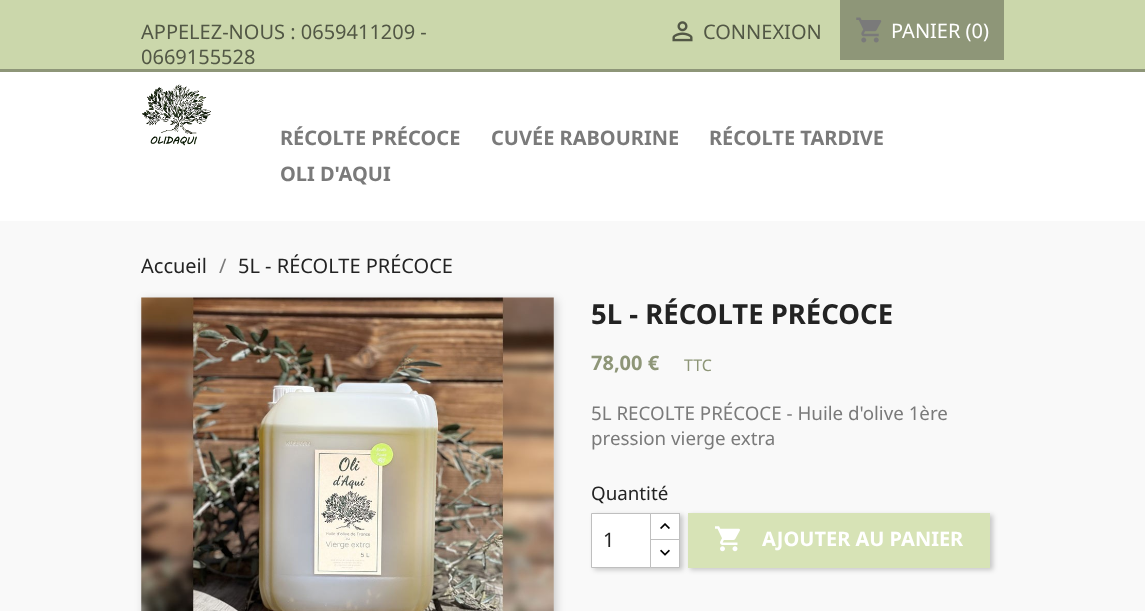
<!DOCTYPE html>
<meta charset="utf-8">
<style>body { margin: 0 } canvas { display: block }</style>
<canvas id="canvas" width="1145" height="611"></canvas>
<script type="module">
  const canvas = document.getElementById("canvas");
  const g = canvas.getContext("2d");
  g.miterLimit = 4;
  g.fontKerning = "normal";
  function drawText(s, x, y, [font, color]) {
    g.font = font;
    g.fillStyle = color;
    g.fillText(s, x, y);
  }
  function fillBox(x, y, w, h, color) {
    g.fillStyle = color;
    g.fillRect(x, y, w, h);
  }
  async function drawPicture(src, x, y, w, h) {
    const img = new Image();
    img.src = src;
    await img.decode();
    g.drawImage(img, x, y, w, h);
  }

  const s1 = ["20px Noto Sans", "#525745"];
  const s2 = ["20px Noto Sans", "#FFFFFF"];
  const s3 = ["bold 20px Noto Sans", "#7A7A7A"];
  const s4 = ["20px Noto Sans", "#232323"];
  const s5 = ["20px Noto Sans", "#7A7A7A"];
  const s6 = ["bold 27.5px Noto Sans", "#232323"];
  const s7 = ["bold 20px Noto Sans", "#8E9678"];
  const s8 = ["16px Noto Sans", "#8E9678"];
  const s9 = ["18.75px Noto Sans", "#7A7A7A"];
  const s10 = ["18.75px Noto Sans", "#232323"];
  const s11 = ["bold 20px Noto Sans", "#FFFFFF"];

  fillBox(0, 0, 1145, 611, "#FFFFFF");
  fillBox(0, 0, 1145, 69, "#CBD7AB");
  fillBox(0, 69, 1145, 3, "#8E9678");
  drawText("APPELEZ-NOUS : 0659411209 -", 141, 39, s1);
  drawText("0669155528", 141, 64, s1);
  await drawPicture("pic1.png", 672, 21, 21, 21);
  drawText("CONNEXION", 703, 39, s1);
  fillBox(840, 0, 164, 60, "#8E9678");
  await drawPicture("pic2.png", 856, 17, 26, 26);
  drawText("PANIER (0)", 891, 38, s2);
  await drawPicture("pic3.png", 142, 84, 69, 62);
  drawText("RÉCOLTE PRÉCOCE", 280, 145, s3);
  drawText("CUVÉE RABOURINE", 491, 145, s3);
  drawText("RÉCOLTE TARDIVE", 709, 145, s3);
  drawText("OLI D'AQUI", 280, 181, s3);
  fillBox(0, 221, 1145, 390, "#F9F9F9");
  drawText("Accueil", 141, 273, s4);
  drawText("/", 219, 273, s5);
  drawText("5L - RÉCOLTE PRÉCOCE", 238, 273, s4);
  g.fillStyle = "rgba(0, 0, 0, 0.2)";
  g.filter = "blur(5px)";
  g.beginPath();
  g.rect(144, 300, 412, 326);
  g.fill();
  g.filter = "none";
  await drawPicture("pic4.png", 141, 297, 413, 314);
  drawText("5L - RÉCOLTE PRÉCOCE", 591, 324, s6);
  drawText("78,00 €", 591, 370, s7);
  drawText("TTC", 684, 371, s8);
  drawText("5L RECOLTE PRÉCOCE - Huile d'olive 1ère", 591, 420, s9);
  drawText("pression vierge extra", 591, 445, s9);
  drawText("Quantité", 591, 500, s10);
  g.fillStyle = "rgba(0, 0, 0, 0.2)";
  g.filter = "blur(2.5px)";
  g.beginPath();
  g.rect(690, 515, 303, 55);
  g.fill();
  g.filter = "none";
  fillBox(688, 513, 302, 55, "#D7E3B6");
  g.fillStyle = "rgba(0, 0, 0, 0.2)";
  g.filter = "blur(2.5px)";
  g.beginPath();
  g.rect(594, 515, 89, 55);
  g.fill();
  g.filter = "none";
  fillBox(651, 514, 28, 25, "#FFFFFF");
  g.strokeStyle = "#BFBFBF";
  g.strokeRect(650.5, 513.5, 29, 27);
  g.beginPath();
  g.rect(650.5, 539.5, 29, 28);
  g.fill();
  g.stroke();
  g.beginPath();
  g.rect(591.5, 513.5, 59, 54);
  g.fill();
  g.stroke();
  drawText("1", 603, 547, s4);
  await drawPicture("pic5.png", 660, 523, 10, 6);
  await drawPicture("pic6.png", 660, 549, 10, 7);
  await drawPicture("pic7.png", 715, 526, 25, 26);
  drawText("AJOUTER AU PANIER", 762, 546, s11);
</script>
